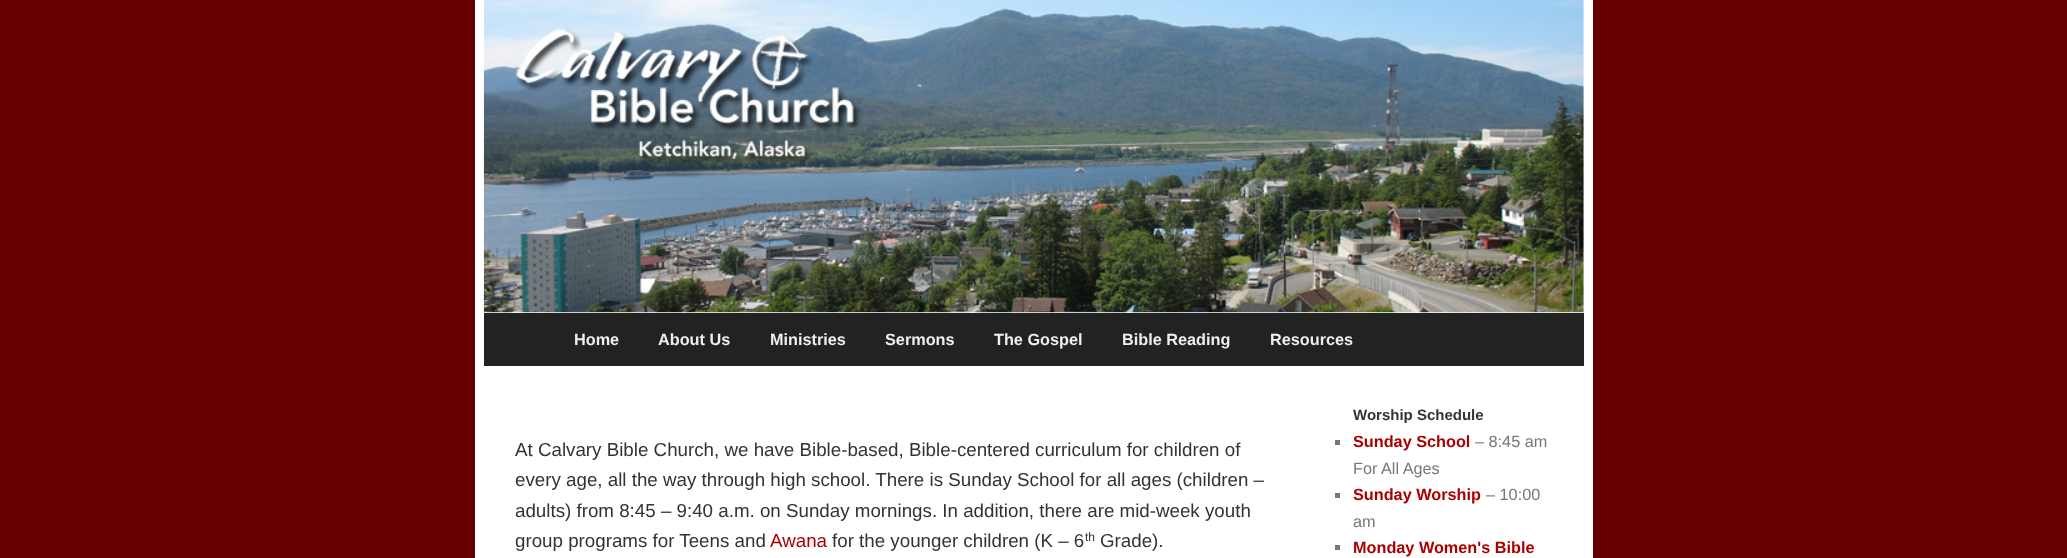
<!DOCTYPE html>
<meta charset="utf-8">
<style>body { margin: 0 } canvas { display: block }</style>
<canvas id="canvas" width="2067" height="558"></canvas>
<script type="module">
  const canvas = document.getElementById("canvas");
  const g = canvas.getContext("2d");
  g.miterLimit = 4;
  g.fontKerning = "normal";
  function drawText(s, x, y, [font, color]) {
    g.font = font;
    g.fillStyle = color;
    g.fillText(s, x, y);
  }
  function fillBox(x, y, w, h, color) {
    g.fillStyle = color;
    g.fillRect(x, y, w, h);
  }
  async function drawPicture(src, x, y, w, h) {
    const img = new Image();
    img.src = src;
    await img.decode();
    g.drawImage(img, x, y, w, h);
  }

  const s1 = ["bold 16.25px Liberation Sans", "#EEEEEE"];
  const s2 = ["18.75px Liberation Sans", "#333333"];
  const s3 = ["18.75px Liberation Sans", "#AA0000"];
  const s4 = ["12px Liberation Sans", "#333333"];
  const s5 = ["bold 15px Liberation Sans", "#333333"];
  const s6 = ["bold 16.25px Liberation Sans", "#AA0000"];
  const s7 = ["16.25px Liberation Sans", "#777777"];

  fillBox(0, 0, 2067, 558, "#660000");
  fillBox(475, 0, 1118, 558, "#FFFFFF");
  await drawPicture("pic1.png", 483, 0, 1101, 313);
  fillBox(484, 313, 1100, 53, "#222222");
  drawText("Home", 574, 345, s1);
  drawText("About Us", 658, 345, s1);
  drawText("Ministries", 770, 345, s1);
  drawText("Sermons", 885, 345, s1);
  drawText("The Gospel", 994, 345, s1);
  drawText("Bible Reading", 1122, 345, s1);
  drawText("Resources", 1270, 345, s1);
  drawText("At Calvary Bible Church, we have Bible-based, Bible-centered curriculum for children of", 515, 456, s2);
  drawText("every age, all the way through high school. There is Sunday School for all ages (children –", 515, 486, s2);
  drawText("adults) from 8:45 – 9:40 a.m. on Sunday mornings. In addition, there are mid-week youth", 515, 517, s2);
  drawText("group programs for Teens and", 515, 547, s2);
  drawText("Awana", 770, 547, s3);
  drawText("for the younger children (K – 6", 832, 547, s2);
  drawText("th", 1085, 541, s4);
  drawText("Grade).", 1100, 547, s2);
  drawText("Worship Schedule", 1353, 420, s5);
  fillBox(1335, 440, 5, 5, "#777777");
  drawText("Sunday School", 1353, 447, s6);
  drawText("– 8:45 am", 1475, 447, s7);
  drawText("For All Ages", 1353, 474, s7);
  fillBox(1335, 493, 5, 5, "#777777");
  drawText("Sunday Worship", 1353, 500, s6);
  drawText("– 10:00", 1486, 500, s7);
  drawText("am", 1353, 527, s7);
  fillBox(1335, 545, 5, 5, "#777777");
  drawText("Monday Women's Bible", 1353, 553, s6);
</script>
